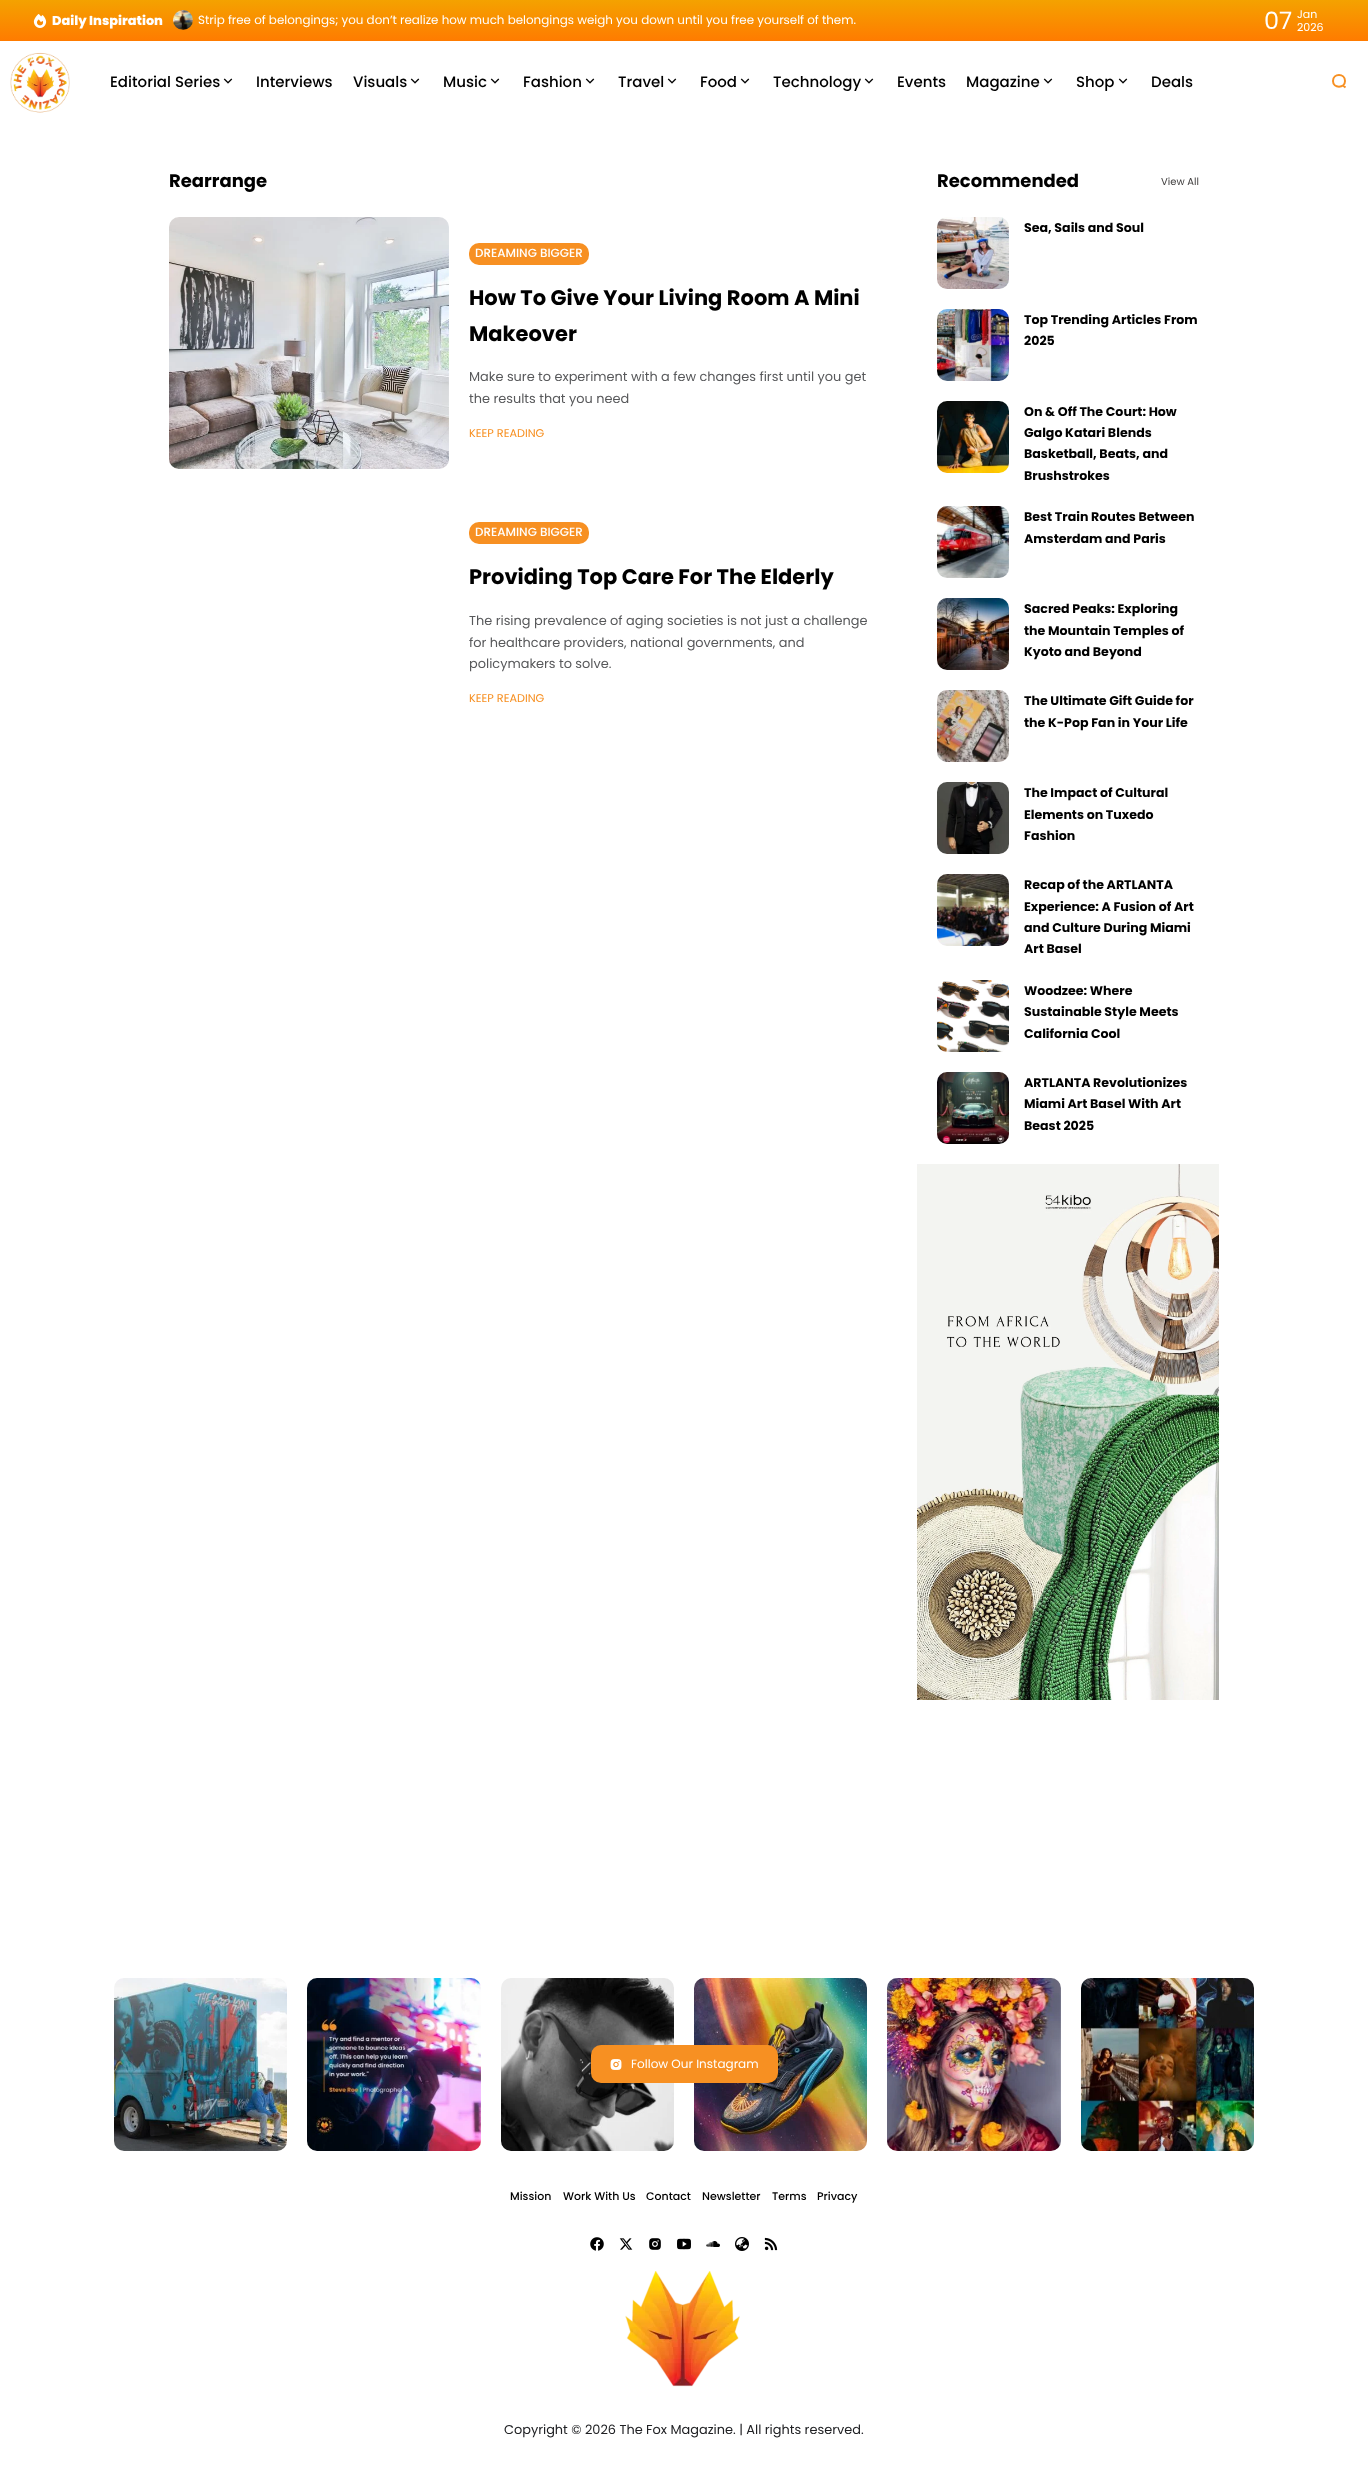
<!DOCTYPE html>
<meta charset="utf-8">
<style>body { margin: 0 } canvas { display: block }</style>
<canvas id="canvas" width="1368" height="2466"></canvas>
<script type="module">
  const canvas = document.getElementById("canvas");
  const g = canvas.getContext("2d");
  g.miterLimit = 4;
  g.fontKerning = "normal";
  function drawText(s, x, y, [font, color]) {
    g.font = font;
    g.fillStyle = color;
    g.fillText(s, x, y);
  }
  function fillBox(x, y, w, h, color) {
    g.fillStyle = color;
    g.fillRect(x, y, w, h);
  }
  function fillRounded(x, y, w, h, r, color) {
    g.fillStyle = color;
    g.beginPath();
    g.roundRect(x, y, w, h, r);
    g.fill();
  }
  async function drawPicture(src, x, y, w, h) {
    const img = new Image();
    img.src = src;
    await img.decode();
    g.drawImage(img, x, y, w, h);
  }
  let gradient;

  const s1 = ["800 12.9px Poppins", "#FFFFFF"];
  const s2 = ["11.9px Poppins", "#FFFFFF"];
  const s3 = ["24px Poppins", "#FFFFFF"];
  const s4 = ["11px Poppins", "#FFFFFF"];
  const s5 = ["500 15px Poppins", "#000000"];
  const s6 = ["bold 18px Poppins", "#000000"];
  const s7 = ["500 11.9px Poppins", "#FFFFFF"];
  const s8 = ["bold 21px Poppins", "#000000"];
  const s9 = ["12.9px Poppins", "#58595B"];
  const s10 = ["11.25px Poppins", "#F79022"];
  const s11 = ["10px Poppins", "#434141"];
  const s12 = ["bold 12.6px Poppins", "#000000"];
  const s13 = ["12px Poppins", "#FFFFFF"];
  const s14 = ["500 11px Poppins", "#000000"];
  const s15 = ["12.9px Poppins", "#202124"];

  fillBox(0, 0, 1368, 2466, "#FFFFFF");
  gradient = g.createLinearGradient(684, 0, 684, 41);
  gradient.addColorStop(0, "#F4A200");
  gradient.addColorStop(1, "#FF7B00");
  g.fillStyle = gradient;
  g.fillRect(0, 0, 1368, 41);
  await drawPicture("pic1.png", 33, 14, 14, 14);
  drawText("Daily Inspiration", 52, 25, s1);
  await drawPicture("pic2.png", 173, 10, 20, 20);
  drawText("Strip free of belongings; you don’t realize how much belongings weigh you down until you free yourself of them.", 198, 24, s2);
  drawText("07", 1264, 29, s3);
  drawText("Jan", 1297, 18, s4);
  drawText("2026", 1297, 31, s4);
  await drawPicture("pic3.png", 10, 52, 60, 61);
  drawText("Editorial Series", 110, 87, s5);
  await drawPicture("pic4.png", 223, 78, 10, 6);
  drawText("Interviews", 256, 87, s5);
  drawText("Visuals", 353, 87, s5);
  await drawPicture("pic4.png", 410, 78, 10, 6);
  drawText("Music", 443, 87, s5);
  await drawPicture("pic4.png", 490, 78, 10, 6);
  drawText("Fashion", 523, 87, s5);
  await drawPicture("pic4.png", 585, 78, 10, 6);
  drawText("Travel", 618, 87, s5);
  await drawPicture("pic4.png", 667, 78, 10, 6);
  drawText("Food", 700, 87, s5);
  await drawPicture("pic4.png", 740, 78, 10, 6);
  drawText("Technology", 773, 87, s5);
  await drawPicture("pic4.png", 864, 78, 10, 6);
  drawText("Events", 897, 87, s5);
  drawText("Magazine", 966, 87, s5);
  await drawPicture("pic4.png", 1043, 78, 10, 6);
  drawText("Shop", 1076, 87, s5);
  await drawPicture("pic4.png", 1118, 78, 10, 6);
  drawText("Deals", 1151, 87, s5);
  g.beginPath();
  g.moveTo(1333, 81);
  g.bezierCurveTo(1333, 88.5, 1345, 88.5, 1345, 81);
  g.bezierCurveTo(1345, 73, 1333, 73, 1333, 81);
  g.moveTo(1343, 85.5);
  g.lineTo(1345.5, 87.5);
  g.strokeStyle = "#F79022";
  g.lineWidth = 2;
  g.stroke();
  drawText("Rearrange", 169, 187, s6);
  await drawPicture("pic5.png", 169, 217, 280, 252);
  fillRounded(469, 243, 120, 22, 10, "#F79022");
  drawText("DREAMING BIGGER", 475, 257, s7);
  drawText("How To Give Your Living Room A Mini", 469, 305, s8);
  drawText("Makeover", 469, 341, s8);
  drawText("Make sure to experiment with a few changes first until you get", 469, 381, s9);
  drawText("the results that you need", 469, 403, s9);
  drawText("KEEP READING", 469, 437, s10);
  fillRounded(469, 522, 120, 22, 10, "#F79022");
  drawText("DREAMING BIGGER", 475, 536, s7);
  drawText("Providing Top Care For The Elderly", 469, 584, s8);
  drawText("The rising prevalence of aging societies is not just a challenge", 469, 625, s9);
  drawText("for healthcare providers, national governments, and", 469, 647, s9);
  drawText("policymakers to solve.", 469, 668, s9);
  drawText("KEEP READING", 469, 702, s10);
  drawText("Recommended", 937, 187, s6);
  drawText("View All", 1161, 185, s11);
  await drawPicture("pic6.png", 937, 217, 72, 72);
  drawText("Sea, Sails and Soul", 1024, 232, s12);
  await drawPicture("pic7.png", 937, 309, 72, 72);
  drawText("Top Trending Articles From", 1024, 324, s12);
  drawText("2025", 1024, 345, s12);
  await drawPicture("pic8.png", 937, 401, 72, 72);
  drawText("On & Off The Court: How", 1024, 416, s12);
  drawText("Galgo Katari Blends", 1024, 437, s12);
  drawText("Basketball, Beats, and", 1024, 458, s12);
  drawText("Brushstrokes", 1024, 480, s12);
  await drawPicture("pic9.png", 937, 506, 72, 72);
  drawText("Best Train Routes Between", 1024, 521, s12);
  drawText("Amsterdam and Paris", 1024, 543, s12);
  await drawPicture("pic10.png", 937, 598, 72, 72);
  drawText("Sacred Peaks: Exploring", 1024, 613, s12);
  drawText("the Mountain Temples of", 1024, 635, s12);
  drawText("Kyoto and Beyond", 1024, 656, s12);
  await drawPicture("pic11.png", 937, 690, 72, 72);
  drawText("The Ultimate Gift Guide for", 1024, 705, s12);
  drawText("the K-Pop Fan in Your Life", 1024, 727, s12);
  await drawPicture("pic12.png", 937, 782, 72, 72);
  drawText("The Impact of Cultural", 1024, 797, s12);
  drawText("Elements on Tuxedo", 1024, 819, s12);
  drawText("Fashion", 1024, 840, s12);
  await drawPicture("pic13.png", 937, 874, 72, 72);
  drawText("Recap of the ARTLANTA", 1024, 889, s12);
  drawText("Experience: A Fusion of Art", 1024, 911, s12);
  drawText("and Culture During Miami", 1024, 932, s12);
  drawText("Art Basel", 1024, 953, s12);
  await drawPicture("pic14.png", 937, 980, 72, 72);
  drawText("Woodzee: Where", 1024, 995, s12);
  drawText("Sustainable Style Meets", 1024, 1016, s12);
  drawText("California Cool", 1024, 1038, s12);
  await drawPicture("pic15.png", 937, 1072, 72, 72);
  drawText("ARTLANTA Revolutionizes", 1024, 1087, s12);
  drawText("Miami Art Basel With Art", 1024, 1108, s12);
  drawText("Beast 2025", 1024, 1130, s12);
  await drawPicture("pic16.png", 917, 1164, 302, 536);
  await drawPicture("pic17.png", 114, 1978, 173, 173);
  await drawPicture("pic18.png", 307, 1978, 174, 173);
  await drawPicture("pic19.png", 501, 1978, 173, 173);
  await drawPicture("pic20.png", 694, 1978, 173, 173);
  await drawPicture("pic21.png", 887, 1978, 174, 173);
  await drawPicture("pic22.png", 1081, 1978, 173, 173);
  fillRounded(591, 2045, 187, 38, 10, "#F79022");
  await drawPicture("pic23.png", 610, 2059, 12, 11);
  drawText("Follow Our Instagram", 631, 2068, s13);
  drawText("Mission", 510, 2200, s14);
  drawText("Work With Us", 563, 2200, s14);
  drawText("Contact", 646, 2200, s14);
  drawText("Newsletter", 702, 2200, s14);
  drawText("Terms", 772, 2200, s14);
  drawText("Privacy", 817, 2200, s14);
  await drawPicture("pic24.png", 590, 2237, 14, 14);
  await drawPicture("pic25.png", 619, 2238, 14, 12);
  await drawPicture("pic26.png", 649, 2238, 12, 12);
  await drawPicture("pic27.png", 677, 2238, 14, 12);
  await drawPicture("pic28.png", 706, 2241, 14, 6);
  await drawPicture("pic29.png", 735, 2237, 14, 14);
  await drawPicture("pic30.png", 764, 2237, 14, 14);
  await drawPicture("pic31.png", 625, 2271, 115, 116);
  drawText("Copyright © 2026 The Fox Magazine. | All rights reserved.", 504, 2434, s15);
</script>
